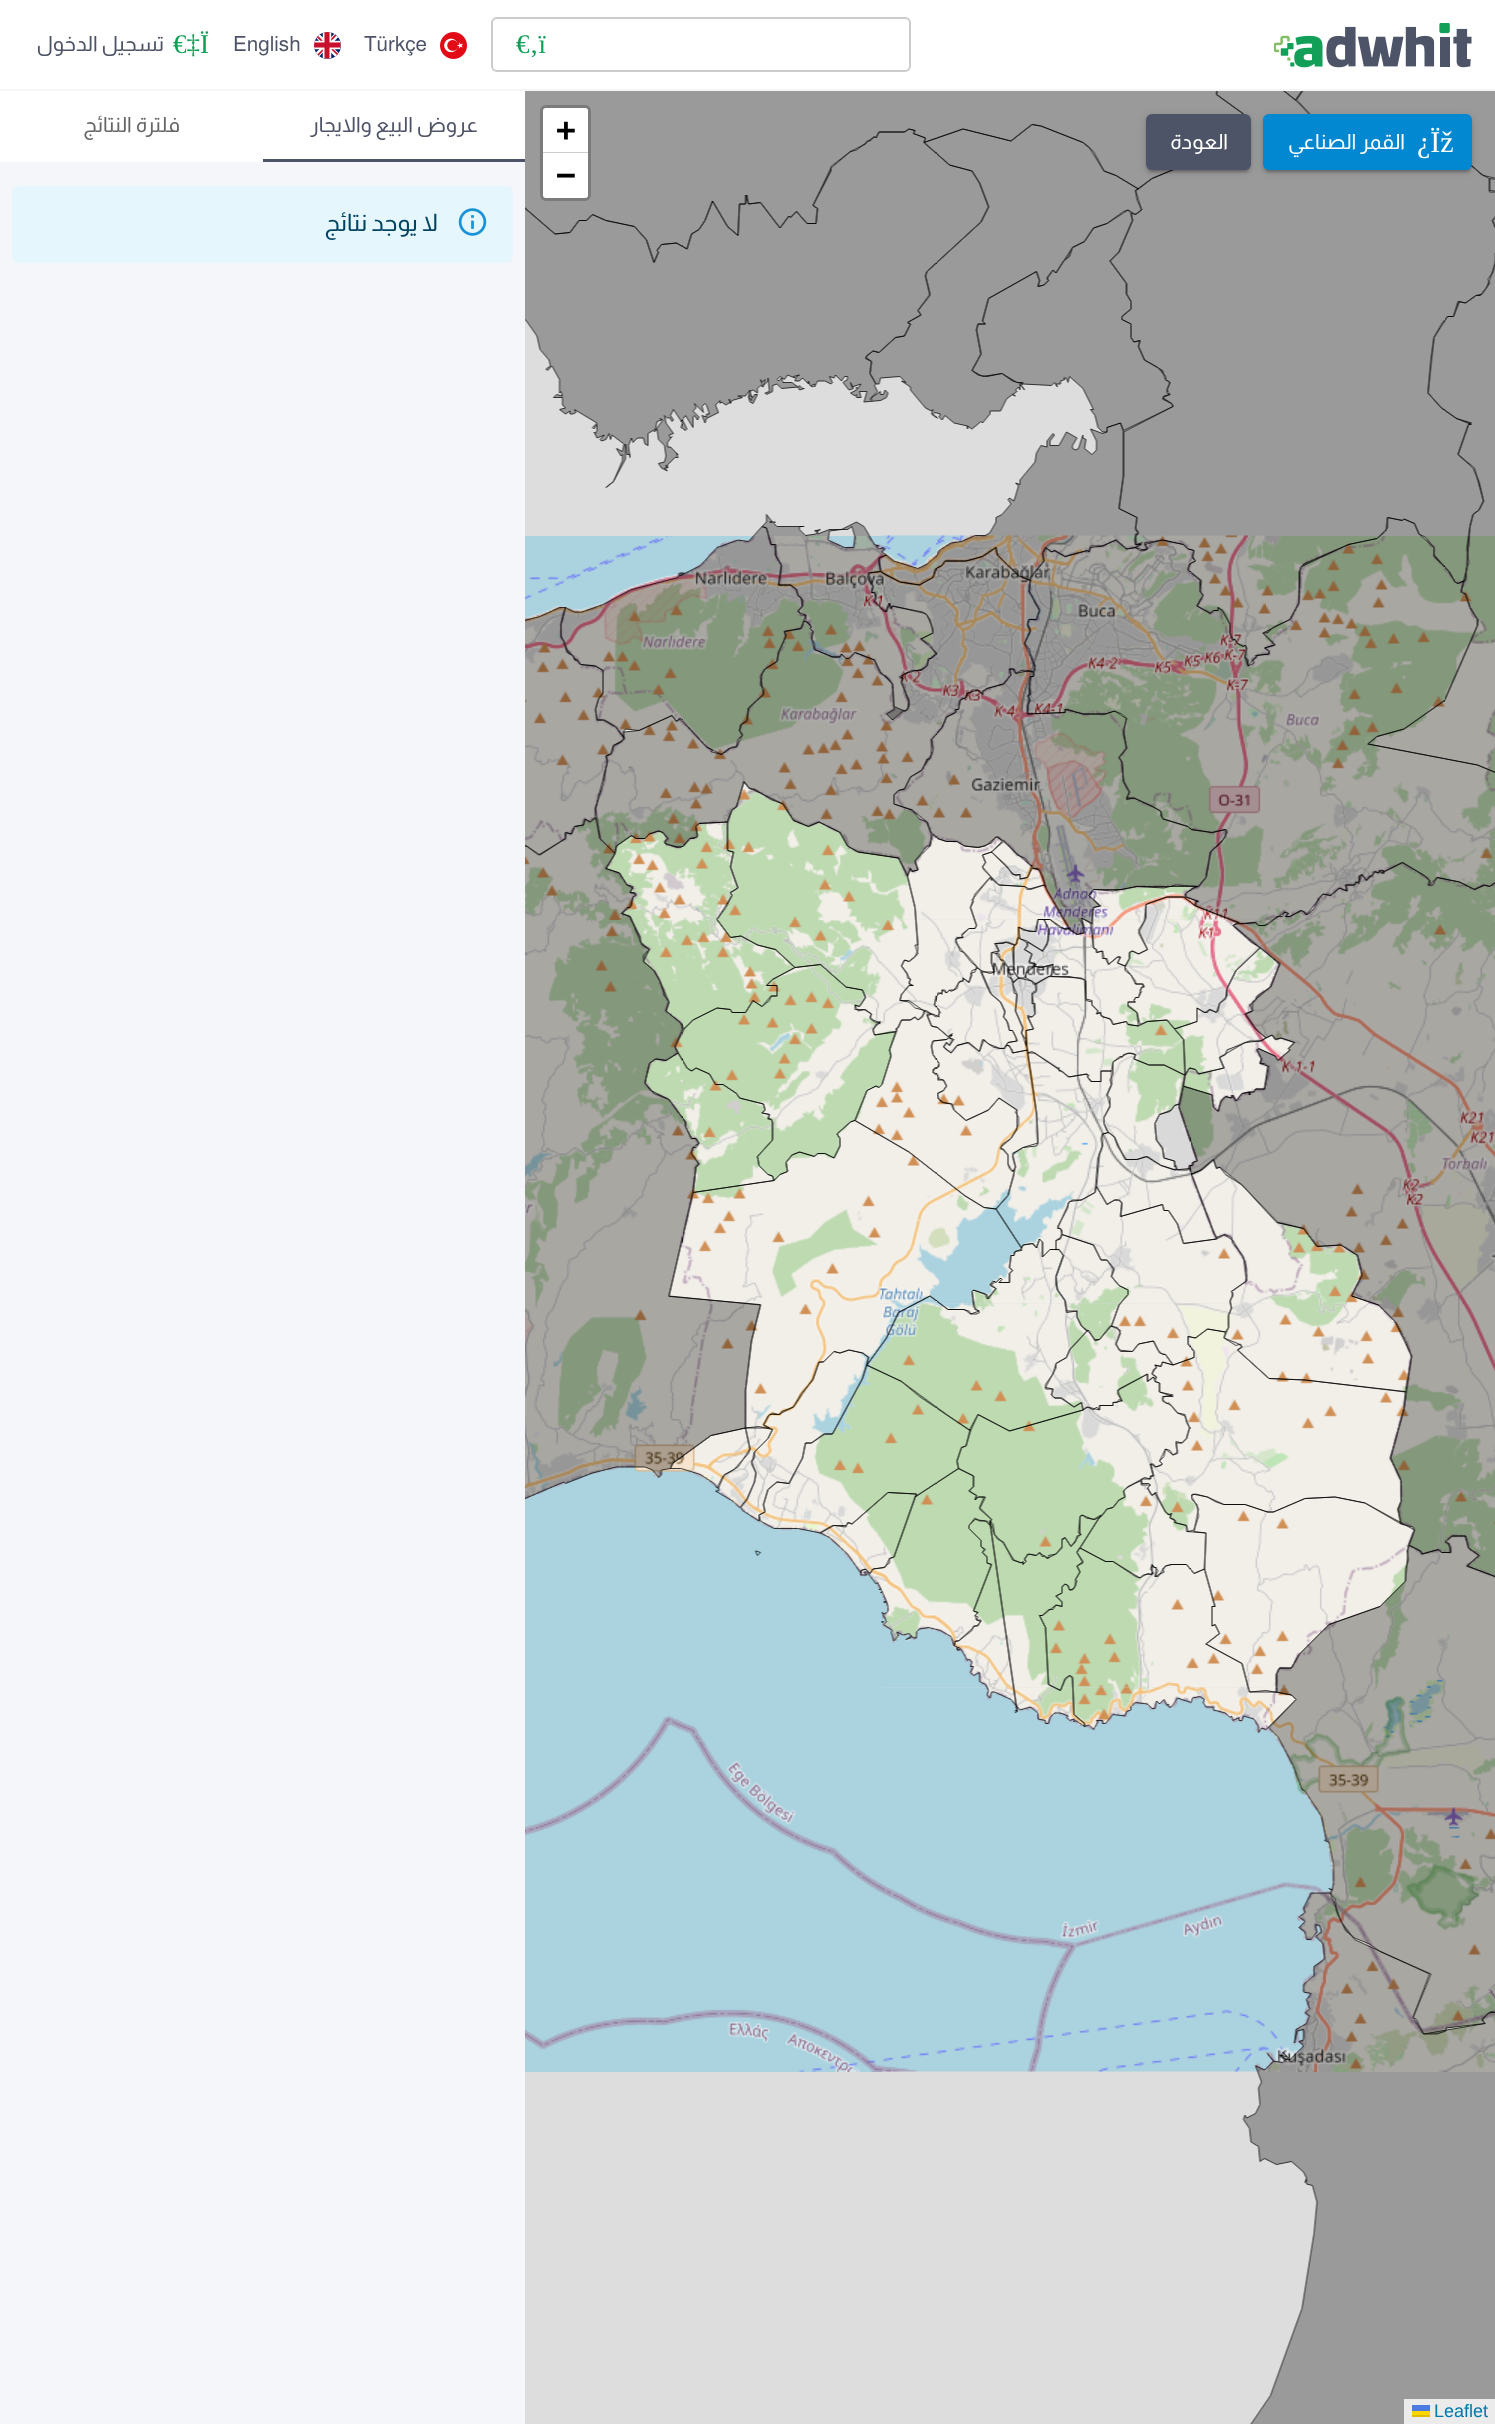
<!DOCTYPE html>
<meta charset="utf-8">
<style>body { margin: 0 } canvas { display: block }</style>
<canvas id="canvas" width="1495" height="2424"></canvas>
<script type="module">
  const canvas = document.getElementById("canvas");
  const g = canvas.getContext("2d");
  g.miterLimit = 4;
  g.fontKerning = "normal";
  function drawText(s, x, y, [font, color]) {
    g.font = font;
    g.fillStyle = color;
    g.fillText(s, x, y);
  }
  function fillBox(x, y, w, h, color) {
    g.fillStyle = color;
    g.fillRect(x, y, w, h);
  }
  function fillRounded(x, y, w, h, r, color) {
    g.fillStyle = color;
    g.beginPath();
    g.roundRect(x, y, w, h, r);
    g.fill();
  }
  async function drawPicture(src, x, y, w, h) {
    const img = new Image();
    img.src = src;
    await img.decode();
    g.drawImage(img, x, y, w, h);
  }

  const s1 = ["27px Liberation Serif", "#12A058"];
  const s2 = ["21px Almarai", "#4E5468"];
  const s3 = ["bold 33px DejaVu Sans Mono", "#000000"];
  const s4 = ["18px Liberation Sans", "#0078A8"];
  const s5 = ["30px Liberation Serif", "#FFFFFF"];
  const s6 = ["21px Almarai", "#FFFFFF"];
  const s7 = ["21px Almarai", "#666666"];
  const s8 = ["24px Almarai", "#014361"];

  fillBox(0, 0, 1495, 2424, "#F5F6FA");
  fillBox(0, 0, 1495, 89, "#FFFFFF");
  fillBox(0, 89, 1495, 2, "#F5F5F5");
  await drawPicture("pic1.png", 1274, 23, 198, 45);
  g.beginPath();
  g.roundRect(492, 18, 418, 53, 5);
  g.strokeStyle = "#CCCCCC";
  g.lineWidth = 2;
  g.stroke();
  drawText("€‚ï", 516, 53, s1);
  await drawPicture("pic2.png", 440, 32, 27, 27);
  drawText("Türkçe", 364, 51, s2);
  await drawPicture("pic3.png", 314, 32, 27, 27);
  drawText("English", 233, 51, s2);
  drawText("€‡Ï", 173, 53, s1);
  g.direction = "rtl";
  drawText("تسجيل الدخول", 164, 51, s2);
  fillBox(525, 91, 970, 2333, "#DDDDDD");
  await drawPicture("pic5.png", 1266, 536, 229, 384);
  await drawPicture("pic9.png", 882, 919, 384, 385);
  await drawPicture("pic6.png", 882, 535, 384, 385);
  await drawPicture("pic7.png", 525, 536, 357, 384);
  await drawPicture("pic8.png", 1266, 920, 229, 384);
  await drawPicture("pic10.png", 525, 920, 357, 384);
  await drawPicture("pic11.png", 1266, 1304, 229, 384);
  await drawPicture("pic12.png", 882, 1303, 384, 385);
  await drawPicture("pic13.png", 525, 1304, 357, 384);
  await drawPicture("pic14.png", 1266, 1688, 229, 384);
  await drawPicture("pic15.png", 882, 1687, 384, 385);
  await drawPicture("pic16.png", 525, 1688, 357, 384);
  await drawPicture("pic4.png", 525, 91, 970, 2333);
  g.beginPath();
  g.roundRect(541.5, 106.5, 48, 93, 4.5);
  g.strokeStyle = "#7B7B7B";
  g.lineWidth = 3;
  g.stroke();
  g.fillStyle = "#FFFFFF";
  g.beginPath();
  g.roundRect(543, 108, 45, 45, [3, 3, 0, 0]);
  g.fill();
  fillBox(543, 152, 45, 1, "#CCCCCC");
  g.direction = "ltr";
  drawText("+", 556, 141, s3);
  g.fillStyle = "#FFFFFF";
  g.beginPath();
  g.roundRect(543, 153, 45, 45, [0, 0, 3, 3]);
  g.fill();
  drawText("−", 556, 186, s3);
  fillBox(1404, 2399, 91, 25, "#EBEBEB");
  drawText("Leaflet", 1434, 2417, s4);
  fillBox(1412, 2405, 18, 6, "#4C7BE1");
  fillBox(1412, 2411, 18, 4, "#FFD500");
  fillBox(1412, 2415, 18, 2, "#E0BC00");
  g.fillStyle = "rgba(0, 0, 0, 0.12)";
  g.filter = "blur(4px)";
  g.beginPath();
  g.roundRect(1263, 116, 209, 55, 6);
  g.fill();
  g.filter = "none";
  g.fillStyle = "rgba(0, 0, 0, 0.14)";
  g.filter = "blur(1.5px)";
  g.beginPath();
  g.roundRect(1263, 117, 209, 56, 6);
  g.fill();
  g.filter = "none";
  g.fillStyle = "rgba(0, 0, 0, 0.2)";
  g.filter = "blur(1px)";
  g.beginPath();
  g.roundRect(1266, 122, 203, 49, 3);
  g.fill();
  g.filter = "none";
  fillRounded(1263, 114, 209, 56, 6, "#0288D1");
  drawText("¿Ïž", 1417, 152, s5);
  g.direction = "rtl";
  drawText("القمر الصناعي", 1405, 149, s6);
  g.fillStyle = "rgba(0, 0, 0, 0.12)";
  g.filter = "blur(4px)";
  g.beginPath();
  g.roundRect(1146, 116, 105, 55, 6);
  g.fill();
  g.filter = "none";
  g.fillStyle = "rgba(0, 0, 0, 0.14)";
  g.filter = "blur(1.5px)";
  g.beginPath();
  g.roundRect(1146, 117, 105, 56, 6);
  g.fill();
  g.filter = "none";
  g.fillStyle = "rgba(0, 0, 0, 0.2)";
  g.filter = "blur(1px)";
  g.beginPath();
  g.roundRect(1149, 122, 99, 49, 3);
  g.fill();
  g.filter = "none";
  fillRounded(1146, 114, 105, 56, 6, "#4E5468");
  drawText("العودة", 1228, 149, s6);
  fillBox(0, 91, 525, 71, "#FFFFFF");
  drawText("عروض البيع والايجار", 478, 132, s2);
  drawText("فلترة النتائج", 180, 132, s7);
  fillBox(263, 159, 262, 3, "#4E5468");
  fillRounded(12, 186, 501, 77, 6, "#E5F6FD");
  await drawPicture("pic17.png", 458, 208, 29, 28);
  drawText("لا يوجد نتائج", 438, 231, s8);
</script>
